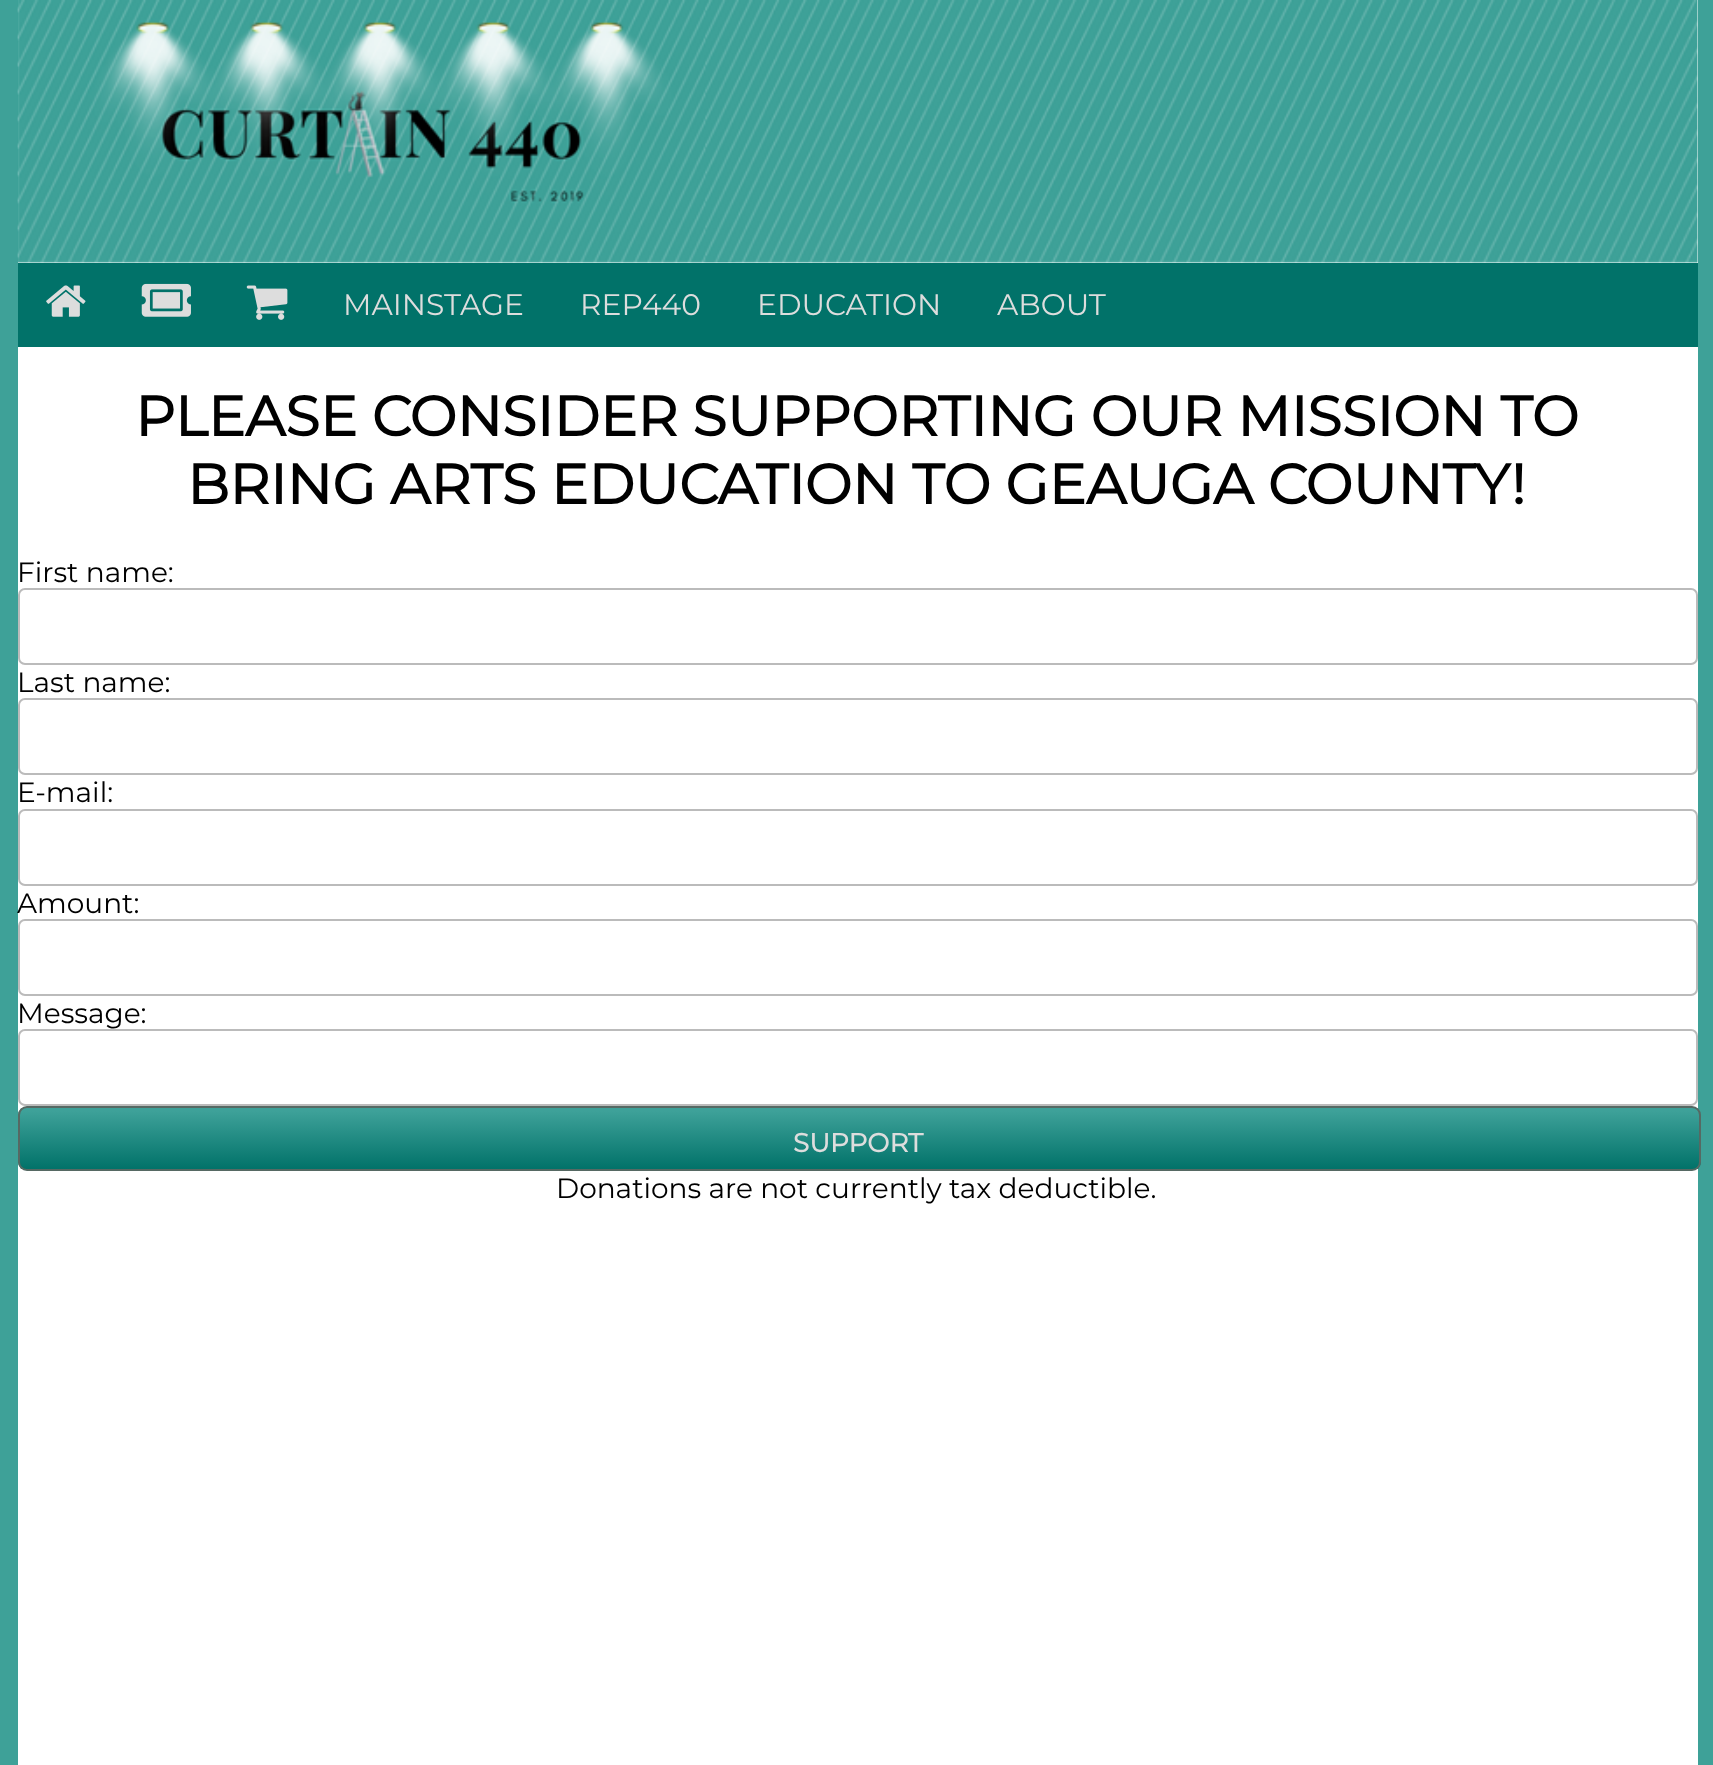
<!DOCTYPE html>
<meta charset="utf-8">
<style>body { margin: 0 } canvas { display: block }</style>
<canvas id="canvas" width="1713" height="1765"></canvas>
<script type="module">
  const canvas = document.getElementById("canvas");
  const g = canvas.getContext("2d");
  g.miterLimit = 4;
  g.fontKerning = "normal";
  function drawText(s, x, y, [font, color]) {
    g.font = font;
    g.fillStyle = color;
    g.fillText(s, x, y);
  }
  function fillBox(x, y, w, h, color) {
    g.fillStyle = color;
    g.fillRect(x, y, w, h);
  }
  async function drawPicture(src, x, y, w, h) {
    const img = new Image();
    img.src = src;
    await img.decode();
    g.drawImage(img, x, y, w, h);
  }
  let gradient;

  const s1 = ["100 29.75px Montserrat", "#DDDDDD"];
  const s2 = ["bold 56px Montserrat", "#000000"];
  const s3 = ["100 28px Montserrat", "#000000"];
  const s4 = ["bold 26.25px Montserrat", "#DDDDDD"];

  fillBox(0, 0, 1713, 1765, "#3EA198");
  fillBox(18, 0, 1680, 1765, "#FFFFFF");
  await drawPicture("pic1.png", 17, 0, 1681, 263);
  fillBox(18, 263, 1680, 84, "#017269");
  await drawPicture("pic2.png", 46, 285, 40, 32);
  await drawPicture("pic3.png", 141, 283, 50, 34);
  await drawPicture("pic4.png", 246, 285, 42, 35);
  drawText("MAINSTAGE", 343, 315, s1);
  drawText("REP440", 580, 315, s1);
  drawText("EDUCATION", 757, 315, s1);
  drawText("ABOUT", 997, 315, s1);
  drawText("PLEASE CONSIDER SUPPORTING OUR MISSION TO", 135, 436, s2);
  drawText("BRING ARTS EDUCATION TO GEAUGA COUNTY!", 187, 504, s2);
  drawText("First name:", 17, 582, s3);
  g.beginPath();
  g.roundRect(19, 589, 1678, 75, 6);
  g.strokeStyle = "#BBBBBB";
  g.lineWidth = 2;
  g.stroke();
  drawText("Last name:", 17, 692, s3);
  g.beginPath();
  g.roundRect(19, 699, 1678, 75, 6);
  g.stroke();
  drawText("E-mail:", 17, 802, s3);
  g.beginPath();
  g.roundRect(19, 810, 1678, 75, 6);
  g.stroke();
  drawText("Amount:", 17, 913, s3);
  g.beginPath();
  g.roundRect(19, 920, 1678, 75, 6);
  g.stroke();
  drawText("Message:", 17, 1023, s3);
  g.beginPath();
  g.roundRect(19, 1030, 1678, 75, 6);
  g.stroke();
  g.save();
  g.beginPath();
  g.roundRect(18, 1106, 1683, 65, 9);
  g.clip();
  gradient = g.createLinearGradient(859, 1108, 859, 1169);
  gradient.addColorStop(0.05, "#3EA199");
  gradient.addColorStop(1, "#017269");
  g.fillStyle = gradient;
  g.fillRect(18, 1108, 1683, 61);
  g.restore();
  g.beginPath();
  g.roundRect(19, 1107, 1681, 63, 8);
  g.strokeStyle = "#566963";
  g.stroke();
  drawText("SUPPORT", 793, 1152, s4);
  drawText("Donations are not currently tax deductible.", 556, 1198, s3);
</script>
